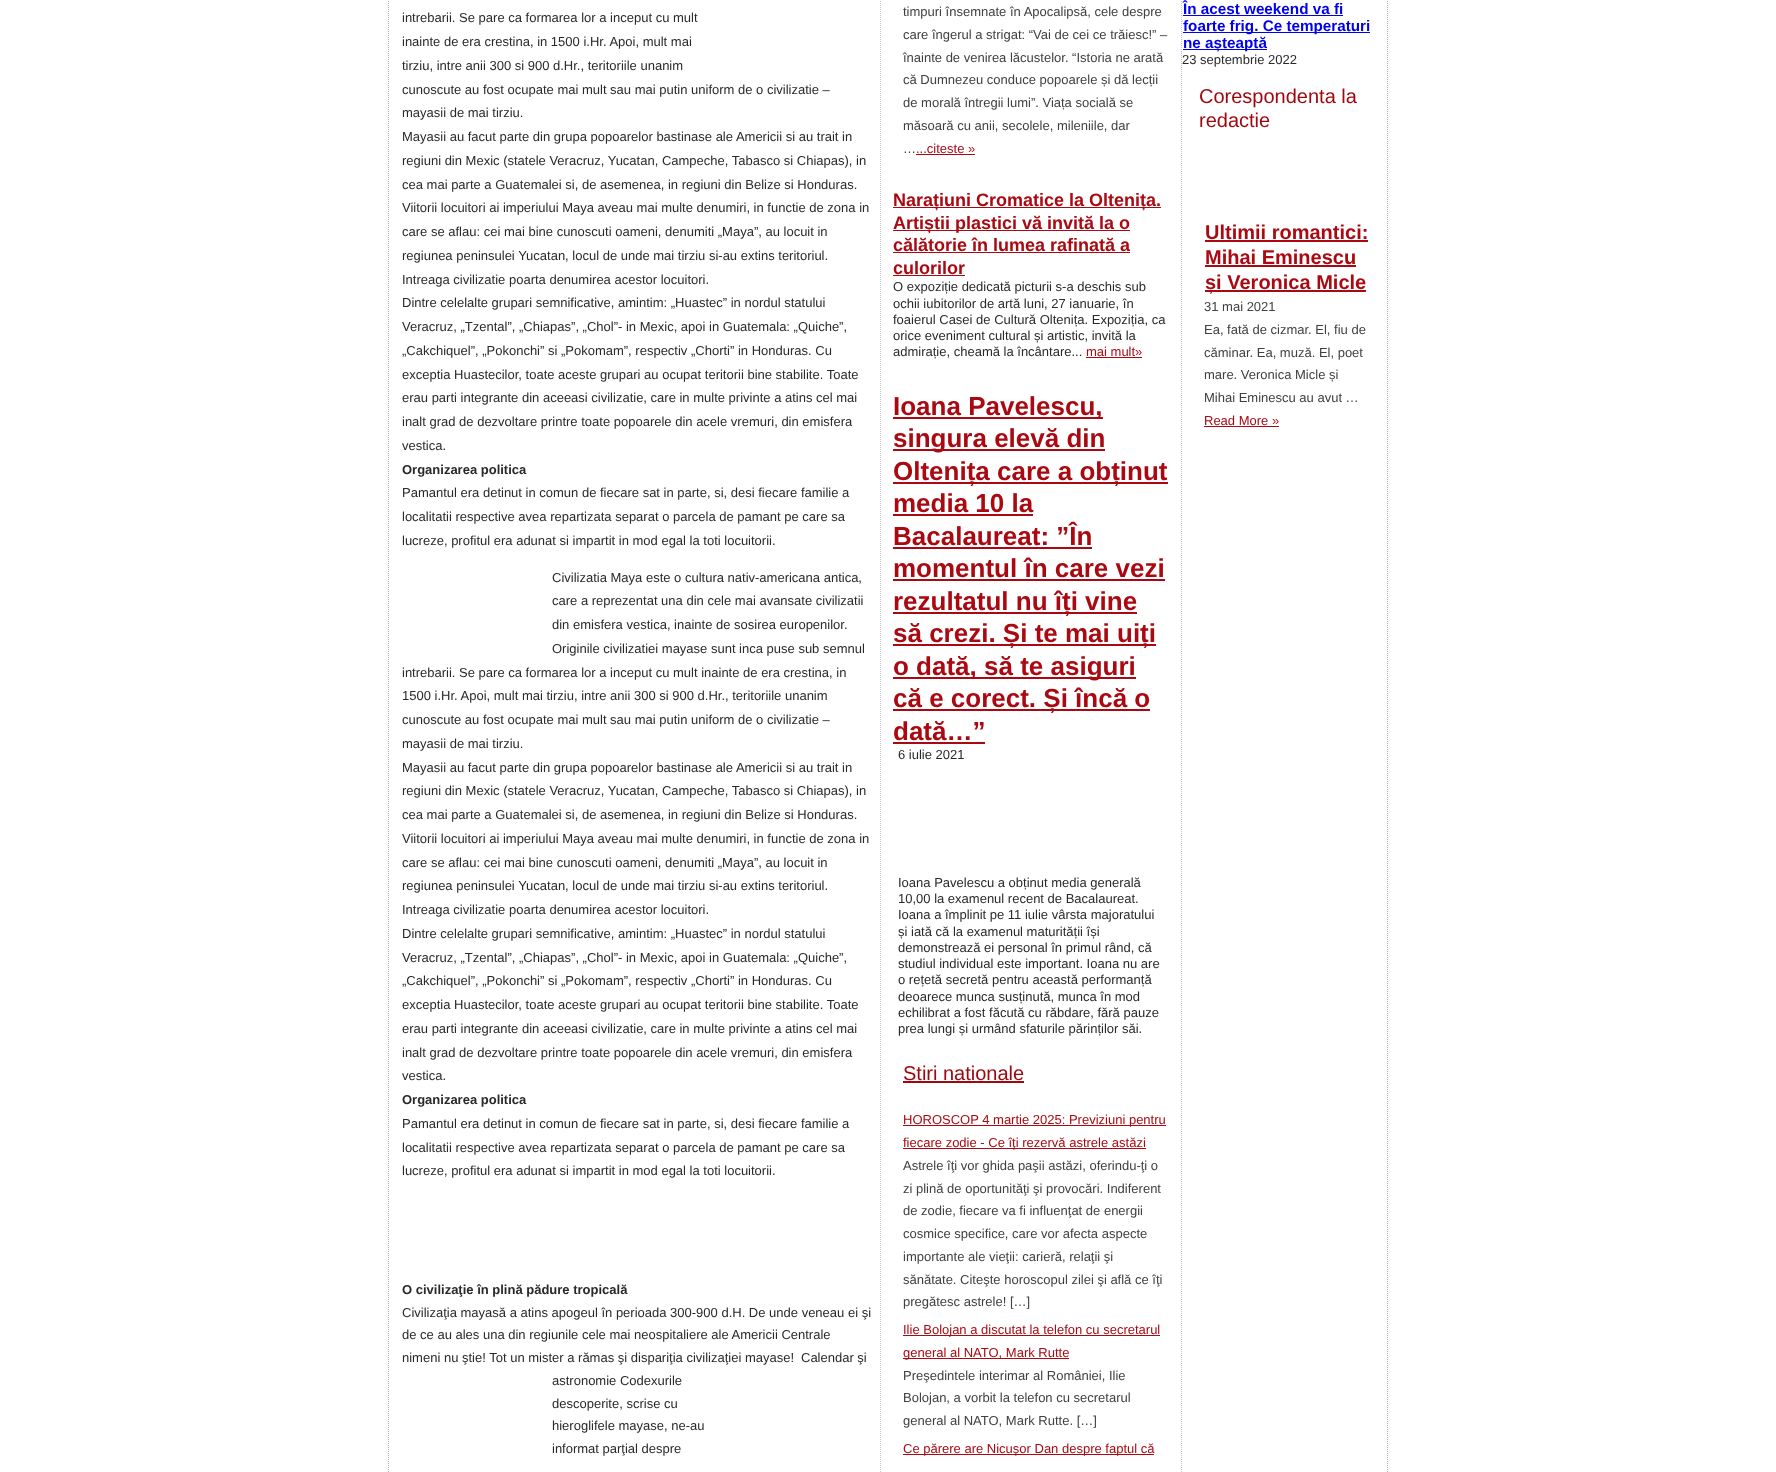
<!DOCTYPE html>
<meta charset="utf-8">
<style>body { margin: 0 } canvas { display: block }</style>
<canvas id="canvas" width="1776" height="1472"></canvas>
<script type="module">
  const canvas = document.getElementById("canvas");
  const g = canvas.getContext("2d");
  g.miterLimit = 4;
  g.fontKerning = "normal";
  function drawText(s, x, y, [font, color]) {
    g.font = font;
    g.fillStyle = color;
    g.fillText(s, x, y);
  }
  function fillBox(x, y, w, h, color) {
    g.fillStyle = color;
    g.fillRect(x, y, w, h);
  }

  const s1 = ["13px Liberation Sans", "#292929"];
  const s2 = ["bold 13px Liberation Sans", "#292929"];
  const s3 = ["13px Liberation Sans", "#404040"];
  const s4 = ["13px Liberation Sans", "#AA0911"];
  const s5 = ["bold 18px Liberation Sans", "#AA0911"];
  const s6 = ["bold 26px Liberation Sans", "#AA0911"];
  const s7 = ["20px Liberation Sans", "#A00810"];
  const s8 = ["bold 15.25px Liberation Sans", "#0000EE"];
  const s9 = ["bold 20px Liberation Sans", "#AA0911"];

  fillBox(0, 0, 1776, 1472, "#FFFFFF");
  g.beginPath();
  g.moveTo(1387.5, -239);
  g.lineTo(1387.5, 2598);
  g.strokeStyle = "#A6A6A6";
  g.setLineDash([1, 1]);
  g.stroke();
  g.beginPath();
  g.moveTo(388.5, -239);
  g.lineTo(388.5, 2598);
  g.stroke();
  drawText("intrebarii. Se pare ca formarea lor a inceput cu mult", 402, 22, s1);
  drawText("inainte de era crestina, in 1500 i.Hr. Apoi, mult mai", 402, 46, s1);
  drawText("tirziu, intre anii 300 si 900 d.Hr., teritoriile unanim", 402, 70, s1);
  drawText("cunoscute au fost ocupate mai mult sau mai putin uniform de o civilizatie –", 402, 94, s1);
  drawText("mayasii de mai tirziu.", 402, 117, s1);
  drawText("Mayasii au facut parte din grupa popoarelor bastinase ale Americii si au trait in", 402, 141, s1);
  drawText("regiuni din Mexic (statele Veracruz, Yucatan, Campeche, Tabasco si Chiapas), in", 402, 165, s1);
  drawText("cea mai parte a Guatemalei si, de asemenea, in regiuni din Belize si Honduras.", 402, 189, s1);
  drawText("Viitorii locuitori ai imperiului Maya aveau mai multe denumiri, in functie de zona in", 402, 212, s1);
  drawText("care se aflau: cei mai bine cunoscuti oameni, denumiti „Maya”, au locuit in", 402, 236, s1);
  drawText("regiunea peninsulei Yucatan, locul de unde mai tirziu si-au extins teritoriul.", 402, 260, s1);
  drawText("Intreaga civilizatie poarta denumirea acestor locuitori.", 402, 284, s1);
  drawText("Dintre celelalte grupari semnificative, amintim: „Huastec” in nordul statului", 402, 307, s1);
  drawText("Veracruz, „Tzental”, „Chiapas”, „Chol”- in Mexic, apoi in Guatemala: „Quiche”,", 402, 331, s1);
  drawText("„Cakchiquel”, „Pokonchi” si „Pokomam”, respectiv „Chorti” in Honduras. Cu", 402, 355, s1);
  drawText("exceptia Huastecilor, toate aceste grupari au ocupat teritorii bine stabilite. Toate", 402, 379, s1);
  drawText("erau parti integrante din aceeasi civilizatie, care in multe privinte a atins cel mai", 402, 402, s1);
  drawText("inalt grad de dezvoltare printre toate popoarele din acele vremuri, din emisfera", 402, 426, s1);
  drawText("vestica.", 402, 450, s1);
  drawText("Organizarea politica", 402, 474, s2);
  drawText("Pamantul era detinut in comun de fiecare sat in parte, si, desi fiecare familie a", 402, 497, s1);
  drawText("localitatii respective avea repartizata separat o parcela de pamant pe care sa", 402, 521, s1);
  drawText("lucreze, profitul era adunat si impartit in mod egal la toti locuitorii.", 402, 545, s1);
  drawText("Civilizatia Maya este o cultura nativ-americana antica,", 552, 582, s1);
  drawText("care a reprezentat una din cele mai avansate civilizatii", 552, 605, s1);
  drawText("din emisfera vestica, inainte de sosirea europenilor.", 552, 629, s1);
  drawText("Originile civilizatiei mayase sunt inca puse sub semnul", 552, 653, s1);
  drawText("intrebarii. Se pare ca formarea lor a inceput cu mult inainte de era crestina, in", 402, 677, s1);
  drawText("1500 i.Hr. Apoi, mult mai tirziu, intre anii 300 si 900 d.Hr., teritoriile unanim", 402, 700, s1);
  drawText("cunoscute au fost ocupate mai mult sau mai putin uniform de o civilizatie –", 402, 724, s1);
  drawText("mayasii de mai tirziu.", 402, 748, s1);
  drawText("Mayasii au facut parte din grupa popoarelor bastinase ale Americii si au trait in", 402, 772, s1);
  drawText("regiuni din Mexic (statele Veracruz, Yucatan, Campeche, Tabasco si Chiapas), in", 402, 795, s1);
  drawText("cea mai parte a Guatemalei si, de asemenea, in regiuni din Belize si Honduras.", 402, 819, s1);
  drawText("Viitorii locuitori ai imperiului Maya aveau mai multe denumiri, in functie de zona in", 402, 843, s1);
  drawText("care se aflau: cei mai bine cunoscuti oameni, denumiti „Maya”, au locuit in", 402, 867, s1);
  drawText("regiunea peninsulei Yucatan, locul de unde mai tirziu si-au extins teritoriul.", 402, 890, s1);
  drawText("Intreaga civilizatie poarta denumirea acestor locuitori.", 402, 914, s1);
  drawText("Dintre celelalte grupari semnificative, amintim: „Huastec” in nordul statului", 402, 938, s1);
  drawText("Veracruz, „Tzental”, „Chiapas”, „Chol”- in Mexic, apoi in Guatemala: „Quiche”,", 402, 962, s1);
  drawText("„Cakchiquel”, „Pokonchi” si „Pokomam”, respectiv „Chorti” in Honduras. Cu", 402, 985, s1);
  drawText("exceptia Huastecilor, toate aceste grupari au ocupat teritorii bine stabilite. Toate", 402, 1009, s1);
  drawText("erau parti integrante din aceeasi civilizatie, care in multe privinte a atins cel mai", 402, 1033, s1);
  drawText("inalt grad de dezvoltare printre toate popoarele din acele vremuri, din emisfera", 402, 1057, s1);
  drawText("vestica.", 402, 1080, s1);
  drawText("Organizarea politica", 402, 1104, s2);
  drawText("Pamantul era detinut in comun de fiecare sat in parte, si, desi fiecare familie a", 402, 1128, s1);
  drawText("localitatii respective avea repartizata separat o parcela de pamant pe care sa", 402, 1152, s1);
  drawText("lucreze, profitul era adunat si impartit in mod egal la toti locuitorii.", 402, 1175, s1);
  drawText("O civilizaţie în plină pădure tropicală", 402, 1294, s2);
  drawText("Civilizaţia mayasă a atins apogeul în perioada 300-900 d.H. De unde veneau ei şi", 402, 1317, s1);
  drawText("de ce au ales una din regiunile cele mai neospitaliere ale Americii Centrale", 402, 1339, s1);
  drawText("nimeni nu ştie! Tot un mister a rămas şi dispariţia civilizaţiei mayase!", 402, 1362, s1);
  drawText("Calendar şi", 801, 1362, s1);
  drawText("astronomie Codexurile", 552, 1385, s1);
  drawText("descoperite, scrise cu", 552, 1408, s1);
  drawText("hieroglifele mayase, ne-au", 552, 1430, s1);
  drawText("informat parţial despre", 552, 1453, s1);
  g.beginPath();
  g.moveTo(1181.5, -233);
  g.lineTo(1181.5, 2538);
  g.strokeStyle = "#C7C7C7";
  g.stroke();
  g.beginPath();
  g.moveTo(880.5, -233);
  g.lineTo(880.5, 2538);
  g.stroke();
  drawText("timpuri însemnate în Apocalipsă, cele despre", 903, 16, s3);
  drawText("care îngerul a strigat: “Vai de cei ce trăiesc!” –", 903, 39, s3);
  drawText("înainte de venirea lăcustelor. “Istoria ne arată", 903, 62, s3);
  drawText("că Dumnezeu conduce popoarele și dă lecții", 903, 84, s3);
  drawText("de morală întregii lumi”. Viața socială se", 903, 107, s3);
  drawText("măsoară cu anii, secolele, mileniile, dar", 903, 130, s3);
  drawText("…", 903, 153, s3);
  drawText("...citeste »", 916, 153, s4);
  fillBox(916, 154, 59, 1, "#AA0911");
  fillBox(893, 207, 268, 1, "#AA0911");
  drawText("Narațiuni Cromatice la Oltenița.", 893, 206, s5);
  fillBox(893, 230, 237, 1, "#AA0911");
  drawText("Artiștii plastici vă invită la o", 893, 229, s5);
  drawText("călătorie în lumea rafinată a", 893, 251, s5);
  fillBox(893, 252, 237, 1, "#AA0911");
  drawText("culorilor", 893, 274, s5);
  fillBox(893, 275, 72, 1, "#AA0911");
  drawText("O expoziție dedicată picturii s-a deschis sub", 893, 291, s1);
  drawText("ochii iubitorilor de artă luni, 27 ianuarie, în", 893, 308, s1);
  drawText("foaierul Casei de Cultură Oltenița. Expoziția, ca", 893, 324, s1);
  drawText("orice eveniment cultural și artistic, invită la", 893, 340, s1);
  drawText("admirație, cheamă la încântare...", 893, 356, s1);
  drawText("mai mult»", 1086, 356, s4);
  fillBox(1086, 357, 56, 1, "#AA0911");
  fillBox(893, 417, 210, 2, "#AA0911");
  drawText("Ioana Pavelescu,", 893, 415, s6);
  fillBox(893, 449, 212, 2, "#AA0911");
  drawText("singura elevă din", 893, 447, s6);
  fillBox(893, 482, 275, 2, "#AA0911");
  drawText("Oltenița care a obținut", 893, 480, s6);
  drawText("media 10 la", 893, 512, s6);
  fillBox(893, 514, 140, 2, "#AA0911");
  drawText("Bacalaureat: ”În", 893, 545, s6);
  fillBox(893, 547, 199, 2, "#AA0911");
  drawText("momentul în care vezi", 893, 577, s6);
  fillBox(893, 579, 272, 2, "#AA0911");
  fillBox(893, 612, 244, 2, "#AA0911");
  drawText("rezultatul nu îți vine", 893, 610, s6);
  fillBox(893, 644, 263, 2, "#AA0911");
  drawText("să crezi. Și te mai uiți", 893, 642, s6);
  fillBox(893, 677, 243, 2, "#AA0911");
  drawText("o dată, să te asiguri", 893, 675, s6);
  fillBox(893, 709, 257, 2, "#AA0911");
  drawText("că e corect. Și încă o", 893, 707, s6);
  drawText("dată…”", 893, 740, s6);
  fillBox(893, 742, 92, 2, "#AA0911");
  drawText("6 iulie 2021", 898, 759, s1);
  drawText("Ioana Pavelescu a obținut media generală", 898, 887, s1);
  drawText("10,00 la examenul recent de Bacalaureat.", 898, 903, s1);
  drawText("Ioana a împlinit pe 11 iulie vârsta majoratului", 898, 919, s1);
  drawText("și iată că la examenul maturității își", 898, 936, s1);
  drawText("demonstrează ei personal în primul rând, că", 898, 952, s1);
  drawText("studiul individual este important. Ioana nu are", 898, 968, s1);
  drawText("o rețetă secretă pentru această performanță", 898, 984, s1);
  drawText("deoarece munca susținută, munca în mod", 898, 1001, s1);
  drawText("echilibrat a fost făcută cu răbdare, fără pauze", 898, 1017, s1);
  drawText("prea lungi și urmând sfaturile părinților săi.", 898, 1033, s1);
  drawText("Stiri nationale", 903, 1080, s7);
  fillBox(903, 1081, 121, 2, "#A00810");
  fillBox(903, 1125, 263, 1, "#AA0911");
  drawText("HOROSCOP 4 martie 2025: Previziuni pentru", 903, 1124, s4);
  fillBox(903, 1148, 243, 1, "#AA0911");
  drawText("fiecare zodie - Ce îţi rezervă astrele astăzi", 903, 1147, s4);
  drawText("Astrele îţi vor ghida paşii astăzi, oferindu-ţi o", 903, 1170, s3);
  drawText("zi plină de oportunităţi şi provocări. Indiferent", 903, 1193, s3);
  drawText("de zodie, fiecare va fi influenţat de energii", 903, 1215, s3);
  drawText("cosmice specifice, care vor afecta aspecte", 903, 1238, s3);
  drawText("importante ale vieţii: carieră, relaţii şi", 903, 1261, s3);
  drawText("sănătate. Citeşte horoscopul zilei şi află ce îţi", 903, 1284, s3);
  drawText("pregătesc astrele! […]", 903, 1306, s3);
  fillBox(903, 1335, 257, 1, "#AA0911");
  drawText("Ilie Bolojan a discutat la telefon cu secretarul", 903, 1334, s4);
  fillBox(903, 1358, 166, 1, "#AA0911");
  drawText("general al NATO, Mark Rutte", 903, 1357, s4);
  drawText("Preşedintele interimar al României, Ilie", 903, 1380, s3);
  drawText("Bolojan, a vorbit la telefon cu secretarul", 903, 1402, s3);
  drawText("general al NATO, Mark Rutte. […]", 903, 1425, s3);
  fillBox(903, 1454, 251, 1, "#AA0911");
  drawText("Ce părere are Nicuşor Dan despre faptul că", 903, 1453, s4);
  drawText("În acest weekend va fi", 1183, 14, s8);
  fillBox(1183, 15, 160, 1, "#0000EE");
  fillBox(1183, 32, 187, 1, "#0000EE");
  drawText("foarte frig. Ce temperaturi", 1183, 31, s8);
  fillBox(1183, 49, 84, 1, "#0000EE");
  drawText("ne așteaptă", 1183, 48, s8);
  drawText("23 septembrie 2022", 1182, 64, s1);
  drawText("Corespondenta la", 1199, 103, s7);
  drawText("redactie", 1199, 127, s7);
  drawText("Ultimii romantici:", 1205, 239, s9);
  fillBox(1205, 240, 163, 2, "#AA0911");
  drawText("Mihai Eminescu", 1205, 264, s9);
  fillBox(1205, 265, 151, 2, "#AA0911");
  fillBox(1205, 290, 161, 2, "#AA0911");
  drawText("și Veronica Micle", 1205, 289, s9);
  drawText("31 mai 2021", 1204, 311, s3);
  drawText("Ea, fată de cizmar. El, fiu de", 1204, 334, s3);
  drawText("căminar. Ea, muză. El, poet", 1204, 357, s3);
  drawText("mare. Veronica Micle și", 1204, 379, s3);
  drawText("Mihai Eminescu au avut …", 1204, 402, s3);
  drawText("Read More »", 1204, 425, s4);
  fillBox(1204, 426, 75, 1, "#AA0911");
</script>
